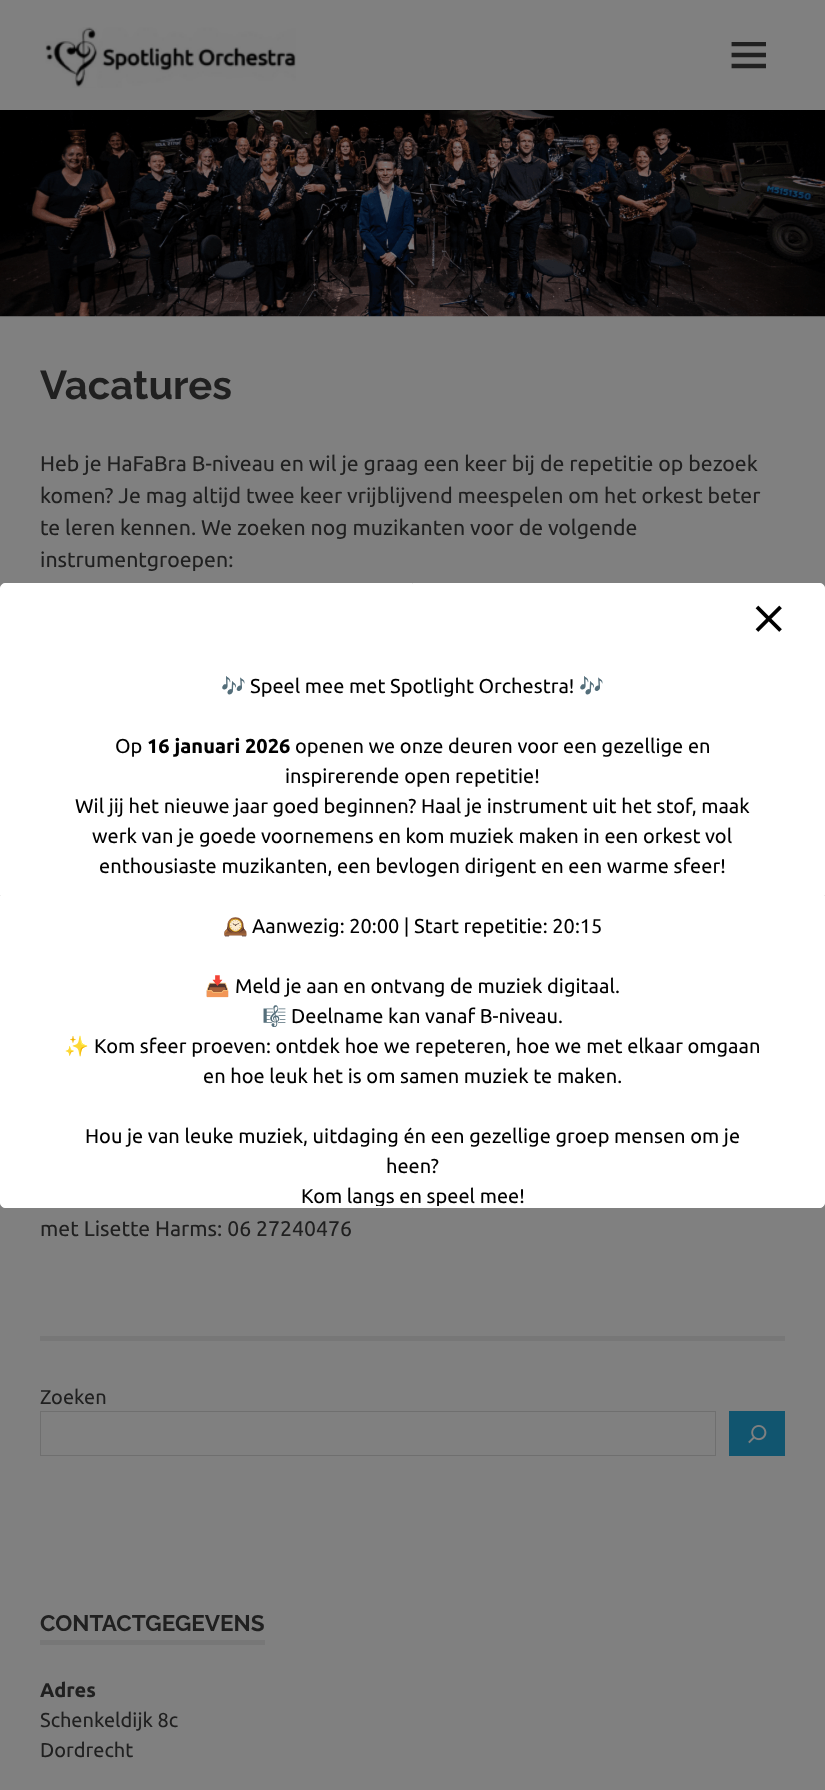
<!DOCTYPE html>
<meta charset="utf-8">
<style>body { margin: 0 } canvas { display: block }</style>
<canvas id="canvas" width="825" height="1790"></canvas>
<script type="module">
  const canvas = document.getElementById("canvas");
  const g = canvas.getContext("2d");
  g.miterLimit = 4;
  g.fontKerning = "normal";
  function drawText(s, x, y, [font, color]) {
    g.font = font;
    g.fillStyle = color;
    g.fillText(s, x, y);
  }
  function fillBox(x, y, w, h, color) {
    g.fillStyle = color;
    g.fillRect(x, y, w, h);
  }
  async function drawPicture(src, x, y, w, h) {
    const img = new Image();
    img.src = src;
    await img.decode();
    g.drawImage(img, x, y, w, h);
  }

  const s1 = ["bold 40px Raleway", "#202020"];
  const s2 = ["21.25px Ubuntu", "#202020"];
  const s3 = ["20px Ubuntu", "#202020"];
  const s4 = ["bold 22.5px Raleway", "#202020"];
  const s5 = ["bold 20px Ubuntu", "#202020"];
  const s6 = ["20px Noto Color Emoji", "#000000"];
  const s7 = ["20px Ubuntu", "#000000"];
  const s8 = ["bold 20px Ubuntu", "#000000"];

  fillBox(0, 0, 825, 1790, "#808080");
  await drawPicture("pic1.png", 45, 27, 251, 61);
  await drawPicture("pic2.png", 731, 42, 35, 27);
  await drawPicture("pic3.png", 0, 110, 825, 207);
  drawText("Vacatures", 40, 399, s1);
  drawText("Heb je HaFaBra B-niveau en wil je graag een keer bij de repetitie op bezoek", 40, 471, s2);
  drawText("komen? Je mag altijd twee keer vrijblijvend meespelen om het orkest beter", 40, 503, s2);
  drawText("te leren kennen. We zoeken nog muzikanten voor de volgende", 40, 535, s2);
  drawText("instrumentgroepen:", 40, 567, s2);
  drawText("met Lisette Harms: 06 27240476", 40, 1236, s2);
  fillBox(40, 1336, 745, 5, "#777777");
  drawText("Zoeken", 40, 1404, s3);
  g.strokeStyle = "#6F6F6F";
  g.strokeRect(40.5, 1411.5, 675, 44);
  fillBox(729, 1411, 56, 45, "#11556F");
  await drawPicture("pic4.png", 748, 1425, 19, 19);
  fillBox(40, 1640, 225, 5, "#777777");
  drawText("CONTACTGEGEVENS", 40, 1631, s4);
  drawText("Adres", 40, 1697, s5);
  drawText("Schenkeldijk 8c", 40, 1727, s3);
  drawText("Dordrecht", 40, 1757, s3);
  g.fillStyle = "#FFFFFF";
  g.beginPath();
  g.roundRect(0.5, 583.5, 824, 624, 4.5);
  g.fill();
  g.strokeStyle = "#FFFFFF";
  g.stroke();
  await drawPicture("pic5.png", 755, 605, 27, 27);
  drawText("🎶", 221, 693, s6);
  drawText("Speel mee met Spotlight Orchestra!", 250, 693, s7);
  drawText("🎶", 579, 693, s6);
  drawText("Op", 115, 753, s7);
  drawText("16 januari 2026", 147, 753, s8);
  drawText("openen we onze deuren voor een gezellige en", 295, 753, s7);
  drawText("inspirerende open repetitie!", 285, 783, s7);
  drawText("Wil jij het nieuwe jaar goed beginnen? Haal je instrument uit het stof, maak", 75, 813, s7);
  drawText("werk van je goede voornemens en kom muziek maken in een orkest vol", 92, 843, s7);
  drawText("enthousiaste muzikanten, een bevlogen dirigent en een warme sfeer!", 99, 873, s7);
  drawText("🕰️", 223, 933, s6);
  drawText("Aanwezig: 20:00 | Start repetitie: 20:15", 252, 933, s7);
  drawText("📥", 205, 993, s6);
  drawText("Meld je aan en ontvang de muziek digitaal.", 235, 993, s7);
  drawText("🎼", 262, 1023, s6);
  drawText("Deelname kan vanaf B-niveau.", 291, 1023, s7);
  drawText("✨", 64, 1053, s6);
  drawText("Kom sfeer proeven: ontdek hoe we repeteren, hoe we met elkaar omgaan", 94, 1053, s7);
  drawText("en hoe leuk het is om samen muziek te maken.", 203, 1083, s7);
  drawText("Hou je van leuke muziek, uitdaging én een gezellige groep mensen om je", 85, 1143, s7);
  drawText("heen?", 386, 1173, s7);
  g.save();
  g.beginPath();
  g.roundRect(1, 584, 823, 622, 4);
  g.clip();
  drawText("Kom langs en speel mee!", 301, 1203, s7);
  g.restore();
</script>
